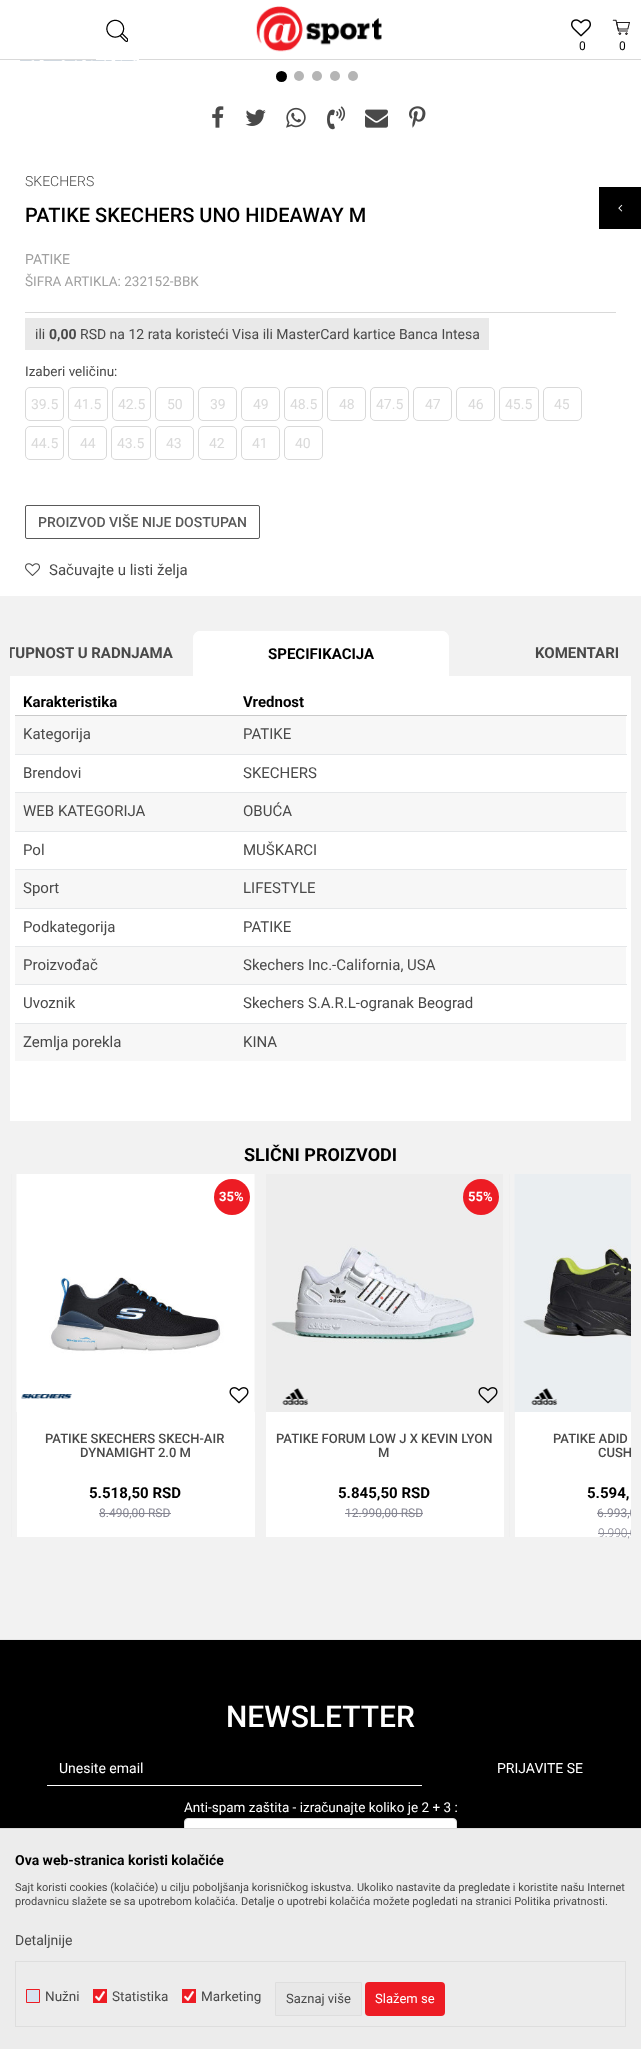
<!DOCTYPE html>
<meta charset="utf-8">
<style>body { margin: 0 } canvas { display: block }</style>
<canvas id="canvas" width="641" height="2049"></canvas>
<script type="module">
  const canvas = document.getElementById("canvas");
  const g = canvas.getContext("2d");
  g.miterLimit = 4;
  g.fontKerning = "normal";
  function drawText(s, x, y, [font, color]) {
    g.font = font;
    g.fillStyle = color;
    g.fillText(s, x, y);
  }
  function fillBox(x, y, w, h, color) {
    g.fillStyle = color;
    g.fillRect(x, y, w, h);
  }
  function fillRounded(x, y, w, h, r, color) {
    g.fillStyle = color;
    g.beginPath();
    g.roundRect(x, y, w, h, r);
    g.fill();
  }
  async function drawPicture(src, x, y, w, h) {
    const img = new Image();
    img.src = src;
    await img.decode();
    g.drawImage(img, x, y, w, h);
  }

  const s1 = ["12px Roboto", "#000000"];
  const s2 = ["300 14px Roboto", "#494949"];
  const s3 = ["500 20px Roboto", "#000000"];
  const s4 = ["14px Roboto", "#A0A0A0"];
  const s5 = ["13.5px Roboto", "#A0A0A0"];
  const s6 = ["14px Roboto", "#494949"];
  const s7 = ["bold 14px Roboto", "#494949"];
  const s8 = ["13.5px Roboto", "#494949"];
  const s9 = ["14px Roboto", "#D9D9D9"];
  const s10 = ["500 14px Roboto", "#595959"];
  const s11 = ["15px Roboto", "#494949"];
  const s12 = ["bold 15px Roboto", "#494949"];
  const s13 = ["bold 15px Roboto", "#000000"];
  const s14 = ["bold 18px Roboto", "#000000"];
  const s15 = ["bold 13px Roboto", "#FFFFFF"];
  const s16 = ["500 13px Roboto", "#494949"];
  const s17 = ["12px Roboto", "#868692"];
  const s18 = ["300 12px Roboto", "#868692"];
  const s19 = ["500 30px Roboto", "#FFFFFF"];
  const s20 = ["14px Roboto", "#FFFFFF"];
  const s21 = ["13.5px Roboto", "#FFFFFF"];
  const s22 = ["bold 14px Roboto", "#000000"];
  const s23 = ["11px Roboto", "#494949"];
  const s24 = ["13px Roboto", "#494949"];
  const s25 = ["13px Roboto", "#FFFFFF"];

  fillBox(0, 0, 641, 2049, "#F2F2F2");
  fillBox(0, 0, 641, 59, "#FFFFFF");
  fillBox(0, 59, 641, 1, "#D9D9D9");
  await drawPicture("pic1.png", 256, 6, 126, 46);
  fillBox(96, 59, 43, 1, "#FFFFFF");
  await drawPicture("pic2.png", 106, 19, 22, 23);
  await drawPicture("pic3.png", 571, 19, 20, 18);
  drawText("0", 579, 50, s1);
  await drawPicture("pic4.png", 612, 19, 18, 16);
  drawText("0", 619, 50, s1);
  fillBox(0, 60, 641, 536, "#FFFFFF");
  await drawPicture("pic5.png", 20, 60, 117, 1);
  g.fillStyle = "#000000";
  g.beginPath();
  g.arc(281.5, 76.5, 5.5, 0, Math.PI * 2);
  g.fill();
  g.fillStyle = "#B5B5B5";
  g.beginPath();
  g.arc(299, 76, 5, 0, Math.PI * 2);
  g.fill();
  g.beginPath();
  g.arc(317, 76, 5, 0, Math.PI * 2);
  g.fill();
  g.beginPath();
  g.arc(335, 76, 5, 0, Math.PI * 2);
  g.fill();
  g.beginPath();
  g.arc(353, 76, 5, 0, Math.PI * 2);
  g.fill();
  await drawPicture("pic6.png", 212, 106, 12, 22);
  await drawPicture("pic7.png", 245, 109, 21, 17);
  await drawPicture("pic8.png", 286, 107, 20, 21);
  await drawPicture("pic9.png", 327, 106, 19, 24);
  await drawPicture("pic10.png", 365, 109, 23, 19);
  await drawPicture("pic11.png", 409, 106, 17, 22);
  fillBox(25, 312, 591, 1, "#D9D9D9");
  drawText("SKECHERS", 25, 186, s2);
  drawText("PATIKE SKECHERS UNO HIDEAWAY M", 25, 222, s3);
  drawText("PATIKE", 25, 264, s4);
  drawText("ŠIFRA ARTIKLA: 232152-BBK", 25, 286, s5);
  fillBox(25, 318, 464, 32, "#E9E9E9");
  drawText("ili", 35, 339, s6);
  drawText("0,00", 49, 339, s7);
  drawText("RSD na 12 rata koristeći Visa ili MasterCard kartice Banca Intesa", 80, 339, s6);
  drawText("Izaberi veličinu:", 25, 376, s8);
  g.beginPath();
  g.roundRect(25.5, 387.5, 38, 33, 4.5);
  g.strokeStyle = "#D9D9D9";
  g.stroke();
  drawText("39.5", 31, 409, s9);
  g.beginPath();
  g.moveTo(73, 387.5);
  g.lineTo(103, 387.5);
  g.bezierCurveTo(105.5, 387.5, 107.5, 389, 107.5, 391);
  g.lineTo(107.5, 417);
  g.bezierCurveTo(107.5, 419, 105.5, 420.5, 103, 420.5);
  g.lineTo(73, 420.5);
  g.bezierCurveTo(70.5, 420.5, 68.5, 419, 68.5, 417);
  g.lineTo(68.5, 391);
  g.bezierCurveTo(68.5, 389, 70.5, 387.5, 73, 387.5);
  g.closePath();
  g.stroke();
  drawText("41.5", 74, 409, s9);
  g.beginPath();
  g.roundRect(112.5, 387.5, 38, 33, 4.5);
  g.stroke();
  drawText("42.5", 118, 409, s9);
  g.beginPath();
  g.roundRect(155.5, 387.5, 38, 33, 4.5);
  g.stroke();
  drawText("50", 167, 409, s9);
  g.beginPath();
  g.roundRect(198.5, 387.5, 38, 33, 4.5);
  g.stroke();
  drawText("39", 210, 409, s9);
  g.beginPath();
  g.roundRect(241.5, 387.5, 38, 33, 4.5);
  g.stroke();
  drawText("49", 253, 409, s9);
  g.beginPath();
  g.roundRect(284.5, 387.5, 38, 33, 4.5);
  g.stroke();
  drawText("48.5", 290, 409, s9);
  g.beginPath();
  g.roundRect(327.5, 387.5, 38, 33, 4.5);
  g.stroke();
  drawText("48", 339, 409, s9);
  g.beginPath();
  g.roundRect(370.5, 387.5, 38, 33, 4.5);
  g.stroke();
  drawText("47.5", 376, 409, s9);
  g.beginPath();
  g.roundRect(413.5, 387.5, 38, 33, 4.5);
  g.stroke();
  drawText("47", 425, 409, s9);
  g.beginPath();
  g.roundRect(456.5, 387.5, 38, 33, 4.5);
  g.stroke();
  drawText("46", 468, 409, s9);
  g.beginPath();
  g.moveTo(504, 387.5);
  g.lineTo(534, 387.5);
  g.bezierCurveTo(536.5, 387.5, 538.5, 389, 538.5, 391);
  g.lineTo(538.5, 417);
  g.bezierCurveTo(538.5, 419, 536.5, 420.5, 534, 420.5);
  g.lineTo(504, 420.5);
  g.bezierCurveTo(501.5, 420.5, 499.5, 419, 499.5, 417);
  g.lineTo(499.5, 391);
  g.bezierCurveTo(499.5, 389, 501.5, 387.5, 504, 387.5);
  g.closePath();
  g.stroke();
  drawText("45.5", 505, 409, s9);
  g.beginPath();
  g.roundRect(543.5, 387.5, 38, 33, 4.5);
  g.stroke();
  drawText("45", 554, 409, s9);
  g.beginPath();
  g.roundRect(25.5, 426.5, 38, 33, 4.5);
  g.stroke();
  drawText("44.5", 31, 448, s9);
  g.beginPath();
  g.roundRect(68.5, 426.5, 38, 33, 4.5);
  g.stroke();
  drawText("44", 80, 448, s9);
  g.beginPath();
  g.moveTo(116, 426.5);
  g.lineTo(146, 426.5);
  g.bezierCurveTo(148.5, 426.5, 150.5, 428, 150.5, 430);
  g.lineTo(150.5, 456);
  g.bezierCurveTo(150.5, 458, 148.5, 459.5, 146, 459.5);
  g.lineTo(116, 459.5);
  g.bezierCurveTo(113.5, 459.5, 111.5, 458, 111.5, 456);
  g.lineTo(111.5, 430);
  g.bezierCurveTo(111.5, 428, 113.5, 426.5, 116, 426.5);
  g.closePath();
  g.stroke();
  drawText("43.5", 117, 448, s9);
  g.beginPath();
  g.roundRect(155.5, 426.5, 38, 33, 4.5);
  g.stroke();
  drawText("43", 166, 448, s9);
  g.beginPath();
  g.roundRect(198.5, 426.5, 38, 33, 4.5);
  g.stroke();
  drawText("42", 209, 448, s9);
  g.beginPath();
  g.roundRect(241.5, 426.5, 38, 33, 4.5);
  g.stroke();
  drawText("41", 252, 448, s9);
  g.beginPath();
  g.roundRect(284.5, 426.5, 38, 33, 4.5);
  g.stroke();
  drawText("40", 295, 448, s9);
  g.beginPath();
  g.roundRect(25.5, 505.5, 234, 33, 1.5);
  g.strokeStyle = "#595959";
  g.stroke();
  drawText("PROIZVOD VIŠE NIJE DOSTUPAN", 38, 527, s10);
  await drawPicture("pic12.png", 25, 563, 15, 13);
  drawText("Sačuvajte u listi želja", 49, 575, s11);
  fillBox(599, 187, 42, 42, "#000000");
  await drawPicture("pic13.png", 618, 204, 5, 8);
  g.save();
  g.beginPath();
  g.rect(10, 631, 621, 45);
  g.clip();
  drawText("TUPNOST U RADNJAMA", 6, 658, s12);
  g.restore();
  g.fillStyle = "#FFFFFF";
  g.beginPath();
  g.roundRect(193, 631, 256, 45, [7, 7, 0, 0]);
  g.fill();
  fillBox(10, 676, 621, 445, "#FFFFFF");
  g.save();
  g.beginPath();
  g.rect(10, 631, 621, 45);
  g.clip();
  g.beginPath();
  g.roundRect(193.5, 631.5, 255, 45, [6.5, 6.5, 0, 0]);
  g.strokeStyle = "#FFFFFF";
  g.stroke();
  g.restore();
  drawText("SPECIFIKACIJA", 268, 659, s13);
  drawText("KOMENTARI", 535, 658, s12);
  fillBox(15, 715, 612, 1, "#CACACA");
  drawText("Karakteristika", 23, 707, s13);
  drawText("Vrednost", 243, 707, s13);
  fillBox(15, 716, 611, 38, "#F7F7F7");
  drawText("Kategorija", 23, 739, s11);
  fillBox(15, 754, 612, 1, "#E5E7E9");
  drawText("PATIKE", 243, 739, s11);
  drawText("Brendovi", 23, 778, s11);
  fillBox(15, 792, 612, 1, "#E5E7E9");
  drawText("SKECHERS", 243, 778, s11);
  fillBox(15, 793, 611, 38, "#F7F7F7");
  drawText("WEB KATEGORIJA", 23, 816, s11);
  fillBox(15, 831, 612, 1, "#E5E7E9");
  drawText("OBUĆA", 243, 816, s11);
  drawText("Pol", 23, 855, s11);
  fillBox(15, 869, 612, 1, "#E5E7E9");
  drawText("MUŠKARCI", 243, 855, s11);
  fillBox(15, 870, 611, 38, "#F7F7F7");
  drawText("Sport", 23, 893, s11);
  fillBox(15, 908, 612, 1, "#E5E7E9");
  drawText("LIFESTYLE", 243, 893, s11);
  drawText("Podkategorija", 23, 932, s11);
  fillBox(15, 946, 612, 1, "#E5E7E9");
  drawText("PATIKE", 243, 932, s11);
  fillBox(15, 947, 611, 37, "#F7F7F7");
  drawText("Proizvođač", 23, 970, s11);
  fillBox(15, 984, 612, 1, "#E5E7E9");
  drawText("Skechers Inc.-California, USA", 243, 970, s11);
  drawText("Uvoznik", 23, 1008, s11);
  fillBox(15, 1023, 612, 1, "#E5E7E9");
  drawText("Skechers S.A.R.L-ogranak Beograd", 243, 1008, s11);
  fillBox(15, 1024, 611, 37, "#F7F7F7");
  drawText("Zemlja porekla", 23, 1047, s11);
  drawText("KINA", 243, 1047, s11);
  drawText("SLIČNI PROIZVODI", 244, 1161, s14);
  fillBox(11, 1174, 1, 363, "#EFEFEF");
  await drawPicture("pic14.png", 16, 1174, 239, 238);
  g.fillStyle = "#ED1C24";
  g.beginPath();
  g.arc(232, 1197, 18, 0, Math.PI * 2);
  g.fill();
  drawText("35%", 219, 1201, s15);
  await drawPicture("pic15.png", 21, 1394, 51, 5);
  await drawPicture("pic16.png", 229, 1387, 20, 17);
  fillBox(17, 1412, 238, 125, "#FFFFFF");
  drawText("PATIKE SKECHERS SKECH-AIR", 45, 1443, s16);
  drawText("DYNAMIGHT 2.0 M", 80, 1457, s16);
  drawText("5.518,50 RSD", 89, 1498, s13);
  drawText("8.490,00 RSD", 99, 1517, s17);
  fillBox(99, 1513, 72, 1, "#868692");
  await drawPicture("pic17.png", 266, 1174, 237, 238);
  g.fillStyle = "#ED1C24";
  g.beginPath();
  g.arc(481, 1197, 18, 0, Math.PI * 2);
  g.fill();
  drawText("55%", 468, 1201, s15);
  await drawPicture("pic18.png", 282, 1388, 27, 17);
  await drawPicture("pic19.png", 478, 1387, 20, 17);
  fillBox(266, 1412, 238, 125, "#FFFFFF");
  drawText("PATIKE FORUM LOW J X KEVIN LYON", 276, 1443, s16);
  drawText("M", 378, 1457, s16);
  drawText("5.845,50 RSD", 338, 1498, s13);
  drawText("12.990,00 RSD", 345, 1517, s17);
  fillBox(345, 1513, 78, 1, "#868692");
  fillBox(509, 1174, 1, 363, "#EFEFEF");
  await drawPicture("pic20.png", 514, 1174, 117, 238);
  await drawPicture("pic21.png", 531, 1388, 27, 17);
  fillBox(515, 1412, 116, 125, "#FFFFFF");
  drawText("PATIKE ADID", 553, 1443, s16);
  drawText("CUSH", 598, 1457, s16);
  drawText("5.594,", 587, 1498, s13);
  g.save();
  g.beginPath();
  g.rect(10, 1174, 621, 393);
  g.clip();
  drawText("6.993,0", 597, 1517, s17);
  g.restore();
  fillBox(597, 1513, 34, 1, "#868692");
  g.save();
  g.beginPath();
  g.rect(10, 1174, 621, 393);
  g.clip();
  drawText("9.990,0", 598, 1537, s18);
  g.restore();
  fillBox(598, 1533, 33, 1, "#868692");
  fillBox(0, 1639, 641, 1, "#E6E6E6");
  fillBox(0, 1640, 641, 188, "#000000");
  drawText("NEWSLETTER", 226, 1727, s19);
  fillBox(47, 1785, 375, 1, "#FFFFFF");
  drawText("Unesite email", 59, 1773, s20);
  drawText("PRIJAVITE SE", 497, 1773, s20);
  drawText("Anti-spam zaštita - izračunajte koliko je 2 + 3 :", 184, 1812, s21);
  g.beginPath();
  g.roundRect(184.5, 1818.5, 272, 33, 3.5);
  g.fill();
  g.strokeStyle = "#DDDDDD";
  g.stroke();
  g.strokeStyle = "#D9D9D9";
  g.strokeRect(-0.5, 1828.5, 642, 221);
  fillBox(0, 1829, 641, 220, "#ECECEC");
  drawText("Ova web-stranica koristi kolačiće", 15, 1865, s22);
  drawText("Sajt koristi cookies (kolačiće) u cilju poboljšanja korisničkog iskustva. Ukoliko nastavite da pregledate i koristite našu Internet", 15, 1891, s23);
  drawText("prodavnicu slažete se sa upotrebom kolačića. Detalje o upotrebi kolačića možete pogledati na stranici Politika privatnosti.", 15, 1905, s23);
  drawText("Detaljnije", 15, 1945, s6);
  g.strokeStyle = "#DEDEDE";
  g.strokeRect(15.5, 1961.5, 610, 65);
  g.fillStyle = "#D6E3F0";
  g.beginPath();
  g.rect(26.5, 1989.5, 13, 13);
  g.fill();
  g.strokeStyle = "#ED1C24";
  g.stroke();
  drawText("Nužni", 45, 2001, s8);
  fillBox(93, 1989, 14, 14, "#ED1C24");
  await drawPicture("pic22.png", 95, 1991, 10, 10);
  drawText("Statistika", 112, 2001, s8);
  fillBox(182, 1989, 14, 14, "#ED1C24");
  await drawPicture("pic22.png", 184, 1991, 10, 10);
  drawText("Marketing", 201, 2001, s8);
  g.fillStyle = "#E8E8E8";
  g.beginPath();
  g.rect(275.5, 1982.5, 86, 33);
  g.fill();
  g.strokeStyle = "#DEDEDE";
  g.stroke();
  drawText("Saznaj više", 286, 2003, s24);
  fillRounded(365, 1982, 80, 34, 4, "#ED1C24");
  drawText("Slažem se", 375, 2003, s25);
</script>
